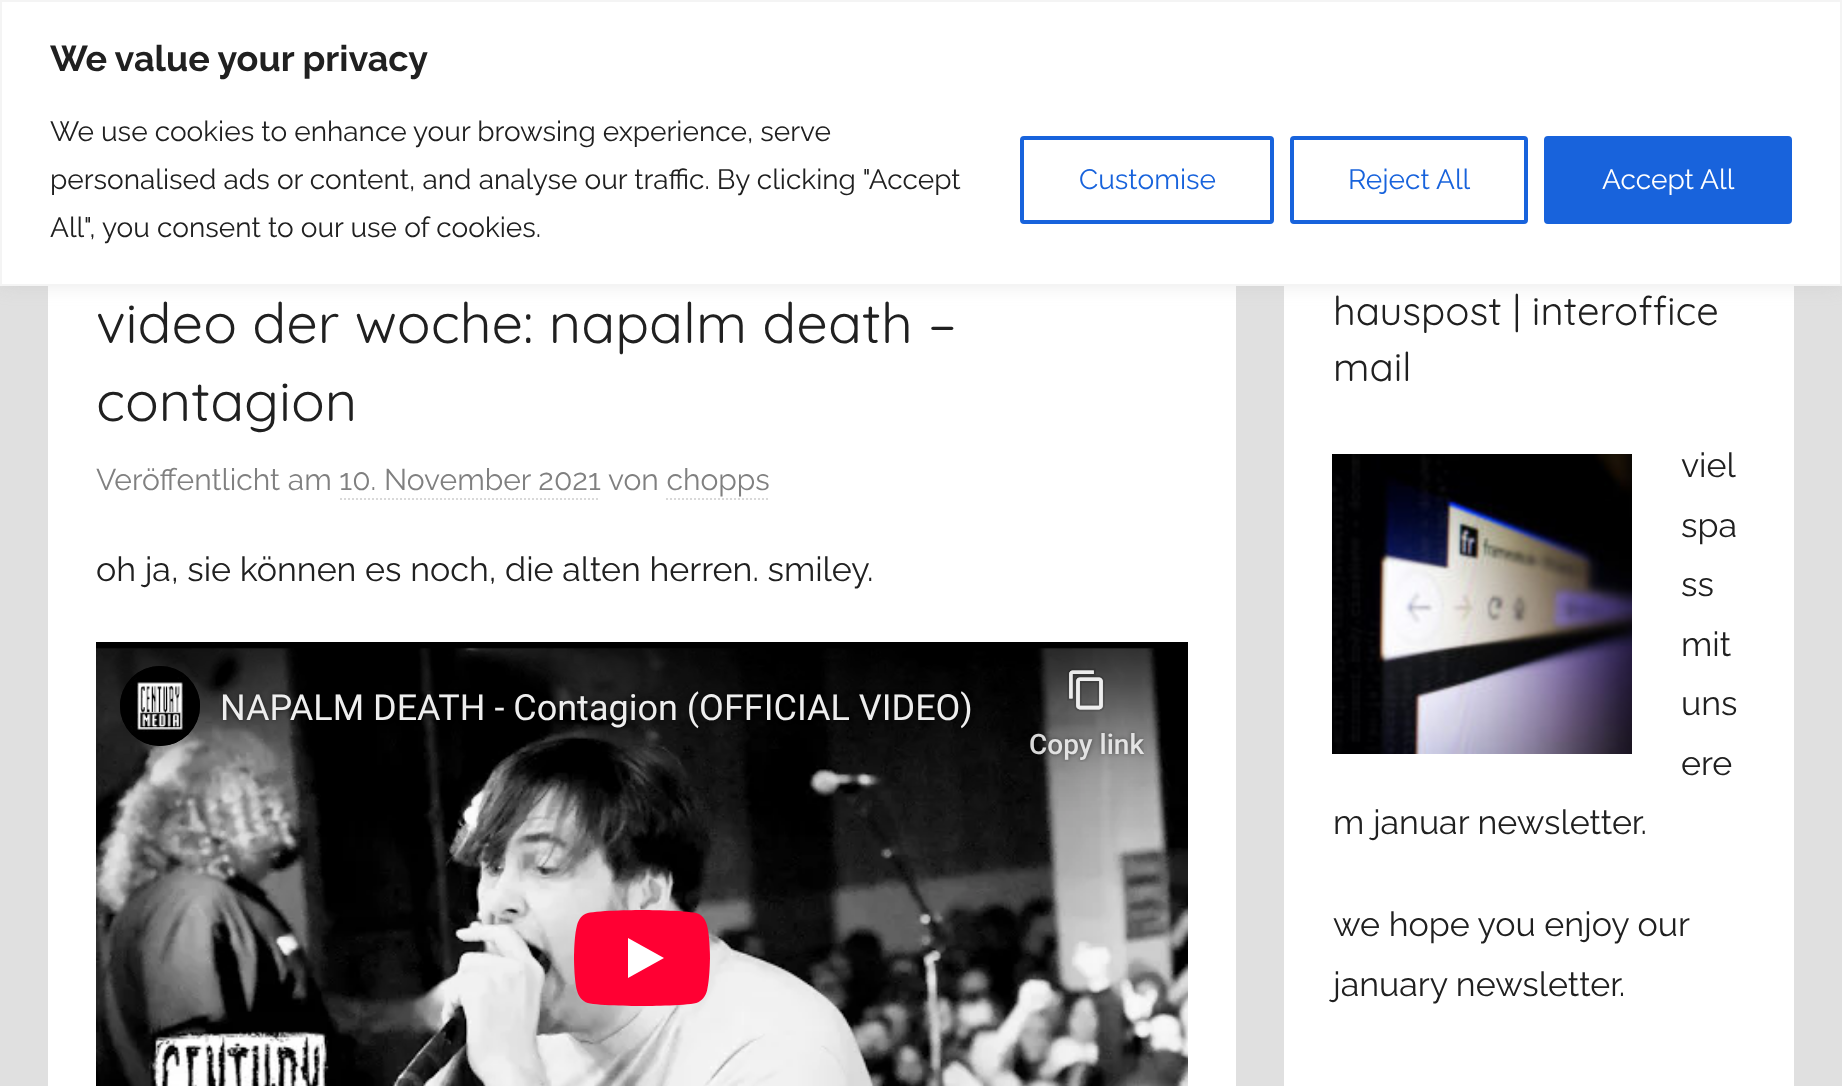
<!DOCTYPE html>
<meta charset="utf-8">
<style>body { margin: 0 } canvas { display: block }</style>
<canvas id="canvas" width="1842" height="1086"></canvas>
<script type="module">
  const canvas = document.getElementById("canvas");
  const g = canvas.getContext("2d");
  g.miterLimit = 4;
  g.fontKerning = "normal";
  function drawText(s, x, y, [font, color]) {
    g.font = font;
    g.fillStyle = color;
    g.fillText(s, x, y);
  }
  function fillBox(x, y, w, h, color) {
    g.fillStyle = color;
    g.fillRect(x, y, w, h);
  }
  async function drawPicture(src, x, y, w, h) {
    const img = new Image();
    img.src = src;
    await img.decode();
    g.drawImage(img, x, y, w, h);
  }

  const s1 = ["bold 36px Raleway", "#202020"];
  const s2 = ["28px Raleway", "#202020"];
  const s3 = ["28px Raleway", "#1863DC"];
  const s4 = ["28px Raleway", "#FFFFFF"];
  const s5 = ["56px Quicksand", "#202020"];
  const s6 = ["30px Raleway", "#808080"];
  const s7 = ["34px Raleway", "#202020"];
  const s8 = ["40px Quicksand", "#202020"];

  fillBox(0, 0, 1842, 1086, "#E0E0E0");
  fillBox(48, 286, 1188, 800, "#FFFFFF");
  fillBox(1284, 286, 510, 800, "#FFFFFF");
  g.fillStyle = "rgba(172, 171, 171, 0.3)";
  g.filter = "blur(10px)";
  g.beginPath();
  g.rect(0, -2, 1842, 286);
  g.fill();
  g.filter = "none";
  g.fillStyle = "#FFFFFF";
  g.beginPath();
  g.rect(1, 1, 1840, 284);
  g.fill();
  g.strokeStyle = "#F4F4F4";
  g.lineWidth = 2;
  g.stroke();
  drawText("We value your privacy", 50, 71, s1);
  drawText("We use cookies to enhance your browsing experience, serve", 50, 141, s2);
  drawText("personalised ads or content, and analyse our traffic. By clicking \"Accept", 50, 189, s2);
  drawText("All\", you consent to our use of cookies.", 50, 237, s2);
  g.beginPath();
  g.roundRect(1022, 138, 250, 84, 2);
  g.strokeStyle = "#1863DC";
  g.lineWidth = 4;
  g.stroke();
  drawText("Customise", 1079, 189, s3);
  g.beginPath();
  g.roundRect(1292, 138, 234, 84, 2);
  g.stroke();
  drawText("Reject All", 1348, 189, s3);
  g.beginPath();
  g.roundRect(1546, 138, 244, 84, 2);
  g.fill();
  g.stroke();
  drawText("Accept All", 1602, 189, s4);
  drawText("video der woche: napalm death –", 96, 343, s5);
  drawText("contagion", 96, 421, s5);
  drawText("Veröffentlicht am 10. November 2021", 96, 490, s6);
  g.beginPath();
  g.moveTo(340, 499);
  g.lineTo(600, 499);
  g.strokeStyle = "#D9D9D9";
  g.lineWidth = 2;
  g.setLineDash([2, 2]);
  g.stroke();
  drawText("von chopps", 608, 490, s6);
  g.beginPath();
  g.moveTo(666, 499);
  g.lineTo(770, 499);
  g.stroke();
  drawText("oh ja, sie können es noch, die alten herren. smiley.", 96, 581, s7);
  await drawPicture("pic1.png", 96, 642, 1092, 444);
  drawText("hauspost | interoffice", 1333, 325, s8);
  drawText("mail", 1333, 381, s8);
  drawText("viel", 1681, 477, s7);
  drawText("spa", 1681, 537, s7);
  drawText("ss", 1681, 596, s7);
  drawText("mit", 1681, 656, s7);
  drawText("uns", 1681, 715, s7);
  drawText("ere", 1681, 775, s7);
  drawText("m januar newsletter.", 1333, 834, s7);
  await drawPicture("pic2.png", 1332, 454, 300, 300);
  drawText("we hope you enjoy our", 1333, 936, s7);
  drawText("january newsletter.", 1333, 996, s7);
</script>
